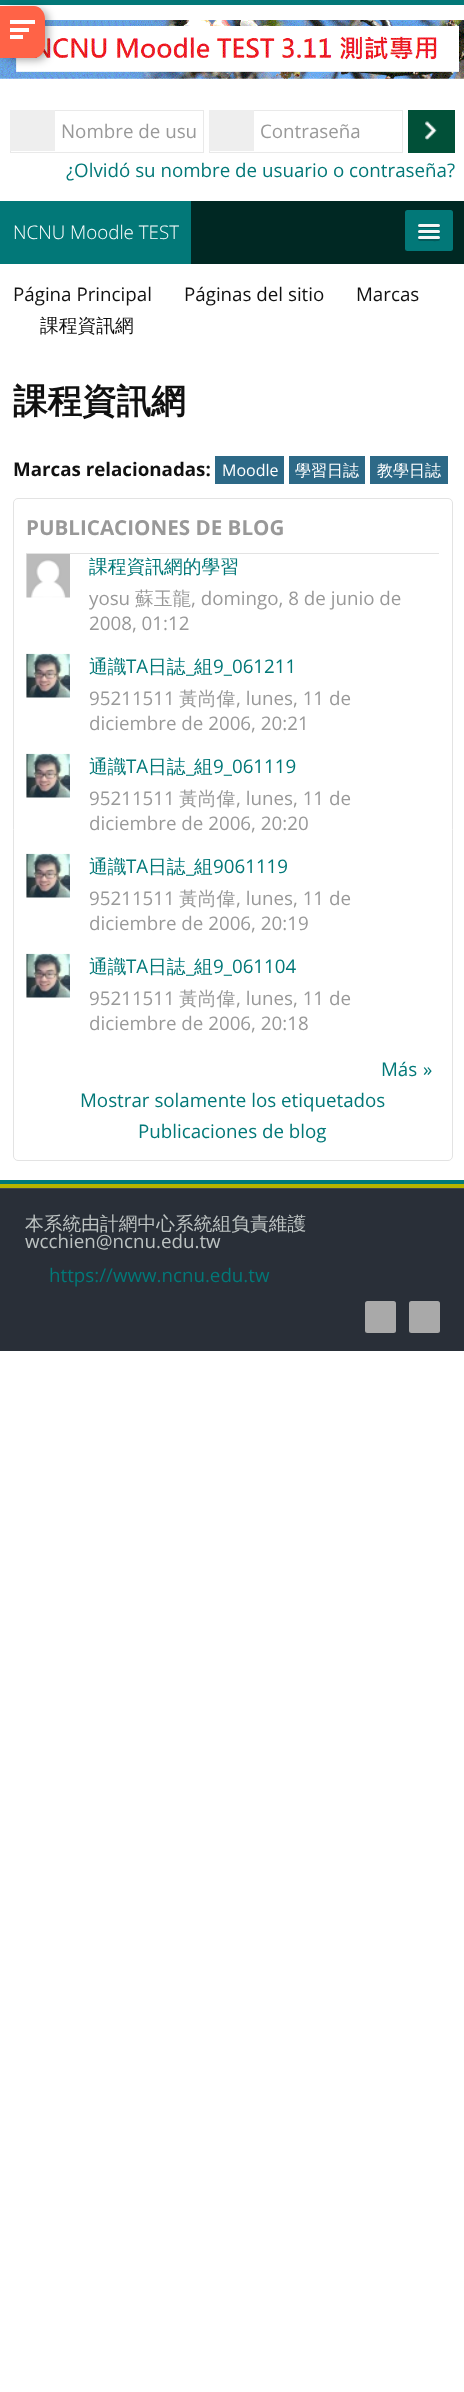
<!DOCTYPE html>
<meta charset="utf-8">
<style>body { margin: 0 } canvas { display: block }</style>
<canvas id="canvas" width="464" height="2392"></canvas>
<script type="module">
  const canvas = document.getElementById("canvas");
  const g = canvas.getContext("2d");
  g.miterLimit = 4;
  g.fontKerning = "normal";
  function drawText(s, x, y, [font, color]) {
    g.font = font;
    g.fillStyle = color;
    g.fillText(s, x, y);
  }
  function fillBox(x, y, w, h, color) {
    g.fillStyle = color;
    g.fillRect(x, y, w, h);
  }
  function fillRounded(x, y, w, h, r, color) {
    g.fillStyle = color;
    g.beginPath();
    g.roundRect(x, y, w, h, r);
    g.fill();
  }
  async function drawPicture(src, x, y, w, h) {
    const img = new Image();
    img.src = src;
    await img.decode();
    g.drawImage(img, x, y, w, h);
  }

  const s1 = ["18.75px Open Sans", "#999999"];
  const s2 = ["18.75px Open Sans", "#027878"];
  const s3 = ["300 18.75px Open Sans", "#FFFFFF"];
  const s4 = ["18.75px Open Sans", "#111111"];
  const s5 = ["500 18.75px WenQuanYi Zen Hei", "#111111"];
  const s6 = ["bold 34.5px WenQuanYi Zen Hei", "#111111"];
  const s7 = ["bold 18.75px Open Sans", "#111111"];
  const s8 = ["16px Open Sans", "#FFFFFF"];
  const s9 = ["500 16px WenQuanYi Zen Hei", "#FFFFFF"];
  const s10 = ["bold 20.6px Open Sans", "#999999"];
  const s11 = ["500 18.75px WenQuanYi Zen Hei", "#027878"];
  const s12 = ["500 18.75px WenQuanYi Zen Hei", "#999999"];
  const s13 = ["500 18.75px WenQuanYi Zen Hei", "#BDC3C2"];
  const s14 = ["18.75px Open Sans", "#BDC3C2"];

  fillBox(0, 0, 464, 2392, "#FFFFFF");
  fillBox(0, 0, 464, 5, "#027878");
  await drawPicture("pic1.png", 0, 20, 464, 59);
  g.fillStyle = "rgba(0, 0, 0, 0.35)";
  g.filter = "blur(4px)";
  g.beginPath();
  g.roundRect(3, 9, 45, 51, 11);
  g.fill();
  g.filter = "none";
  g.fillStyle = "#FF6347";
  g.beginPath();
  g.moveTo(0, 6);
  g.lineTo(34, 6);
  g.bezierCurveTo(40, 6, 45, 12, 45, 19);
  g.lineTo(45, 45);
  g.bezierCurveTo(45, 52, 40, 58, 34, 58);
  g.lineTo(0, 58);
  g.closePath();
  g.fill();
  fillBox(10, 20, 25, 4, "#FFFFFF");
  fillBox(10, 28, 19, 4, "#FFFFFF");
  fillBox(10, 35, 13, 4, "#FFFFFF");
  g.strokeStyle = "#E9E9E9";
  g.strokeRect(10.5, 110.5, 193, 42);
  fillBox(10, 110, 45, 41, "#EEEEEE");
  drawText("Nombre de usu", 61, 138, s1);
  g.strokeRect(209.5, 110.5, 193, 42);
  fillBox(209, 110, 45, 41, "#EEEEEE");
  drawText("Contraseña", 260, 138, s1);
  fillBox(408, 110, 47, 43, "#015038");
  await drawPicture("pic2.png", 425, 121, 12, 19);
  drawText("¿Olvidó su nombre de usuario o contraseña?", 66, 177, s2);
  fillBox(191, 201, 273, 63, "#002823");
  fillBox(0, 201, 191, 63, "#027878");
  drawText("NCNU Moodle TEST", 13, 239, s3);
  fillRounded(405, 210, 48, 41, 2.5, "#027878");
  g.fillStyle = "#025A5A";
  g.beginPath();
  g.moveTo(418, 226);
  g.bezierCurveTo(417.5, 228.5, 422, 228, 422.5, 228);
  g.lineTo(435.5, 228);
  g.bezierCurveTo(436, 228, 441.5, 228.5, 440, 225.5);
  g.lineTo(439, 226);
  g.closePath();
  g.fill();
  fillRounded(418, 224, 22, 3, 1.5, "#F5F5F5");
  g.fillStyle = "#025A5A";
  g.beginPath();
  g.moveTo(418, 232.5);
  g.bezierCurveTo(417.5, 234.5, 421.5, 234, 422.5, 234);
  g.lineTo(435.5, 234);
  g.bezierCurveTo(436, 234, 441, 234.5, 440, 232);
  g.lineTo(439, 232.5);
  g.bezierCurveTo(437, 232.5, 418.5, 232.5, 418, 232.5);
  g.closePath();
  g.fill();
  fillRounded(418, 230, 22, 3, 1.5, "#F5F5F5");
  g.fillStyle = "#025A5A";
  g.beginPath();
  g.moveTo(418.5, 238.5);
  g.bezierCurveTo(416.5, 241.5, 422, 241, 422.5, 241);
  g.lineTo(429, 241);
  g.bezierCurveTo(431, 241, 439, 241.5, 439.5, 240.5);
  g.bezierCurveTo(440, 240, 440, 239, 439.5, 238.5);
  g.bezierCurveTo(439, 239, 419.5, 239, 418.5, 238.5);
  g.closePath();
  g.fill();
  fillRounded(418, 236, 22, 3, 1.5, "#F5F5F5");
  drawText("Página Principal", 13, 301, s4);
  drawText("Páginas del sitio", 184, 301, s4);
  drawText("Marcas", 356, 301, s4);
  drawText("課程資訊網", 40, 332, s5);
  drawText("課程資訊網", 13, 413, s6);
  drawText("Marcas relacionadas:", 13, 476, s7);
  fillBox(215, 456, 69, 28, "#2D6987");
  drawText("Moodle", 222, 476, s8);
  fillBox(289, 456, 76, 28, "#2D6987");
  drawText("學習日誌", 295, 476, s9);
  fillBox(370, 456, 78, 28, "#2D6987");
  drawText("教學日誌", 377, 476, s9);
  g.beginPath();
  g.roundRect(13.5, 498.5, 439, 662, 4.5);
  g.strokeStyle = "#E3E3E3";
  g.stroke();
  fillBox(26, 553, 413, 1, "#E3E3E3");
  drawText("PUBLICACIONES DE BLOG", 26, 535, s10);
  await drawPicture("pic3.png", 26, 554, 44, 44);
  drawText("課程資訊網的學習", 89, 573, s11);
  drawText("yosu", 89, 605, s1);
  drawText("蘇玉龍", 135, 605, s12);
  drawText(", domingo, 8 de junio de", 191, 605, s1);
  drawText("2008, 01:12", 89, 630, s1);
  await drawPicture("pic4.png", 26, 653, 44, 45);
  drawText("通識", 89, 673, s11);
  drawText("TA", 126, 673, s2);
  drawText("日誌", 148, 673, s11);
  drawText("_", 186, 673, s2);
  drawText("組", 194, 673, s11);
  drawText("9_061211", 213, 673, s2);
  drawText("95211511", 89, 705, s1);
  drawText("黃尚偉", 179, 705, s12);
  drawText(", lunes, 11 de", 236, 705, s1);
  drawText("diciembre de 2006, 20:21", 89, 730, s1);
  await drawPicture("pic4.png", 26, 753, 44, 45);
  drawText("通識", 89, 773, s11);
  drawText("TA", 126, 773, s2);
  drawText("日誌", 148, 773, s11);
  drawText("_", 186, 773, s2);
  drawText("組", 194, 773, s11);
  drawText("9_061119", 213, 773, s2);
  drawText("95211511", 89, 805, s1);
  drawText("黃尚偉", 179, 805, s12);
  drawText(", lunes, 11 de", 236, 805, s1);
  drawText("diciembre de 2006, 20:20", 89, 830, s1);
  await drawPicture("pic4.png", 26, 853, 44, 45);
  drawText("通識", 89, 873, s11);
  drawText("TA", 126, 873, s2);
  drawText("日誌", 148, 873, s11);
  drawText("_", 186, 873, s2);
  drawText("組", 194, 873, s11);
  drawText("9061119", 213, 873, s2);
  drawText("95211511", 89, 905, s1);
  drawText("黃尚偉", 179, 905, s12);
  drawText(", lunes, 11 de", 236, 905, s1);
  drawText("diciembre de 2006, 20:19", 89, 930, s1);
  await drawPicture("pic4.png", 26, 953, 44, 45);
  drawText("通識", 89, 973, s11);
  drawText("TA", 126, 973, s2);
  drawText("日誌", 148, 973, s11);
  drawText("_", 186, 973, s2);
  drawText("組", 194, 973, s11);
  drawText("9_061104", 213, 973, s2);
  drawText("95211511", 89, 1005, s1);
  drawText("黃尚偉", 179, 1005, s12);
  drawText(", lunes, 11 de", 236, 1005, s1);
  drawText("diciembre de 2006, 20:18", 89, 1030, s1);
  drawText("Más", 381, 1076, s2);
  drawText("»", 423, 1076, s2);
  drawText("Mostrar solamente los etiquetados", 80, 1107, s2);
  drawText("Publicaciones de blog", 138, 1138, s2);
  fillBox(0, 1184, 464, 4, "#B7B400");
  fillBox(0, 1180, 464, 4, "#027878");
  fillBox(0, 1189, 464, 162, "#292F38");
  fillBox(0, 1188, 464, 1, "#41464E");
  drawText("本系統由計網中心系統組負責維護", 25, 1230, s13);
  drawText("wcchien@ncnu.edu.tw", 25, 1248, s14);
  drawText("https://www.ncnu.edu.tw", 49, 1282, s2);
  fillRounded(365, 1301, 31, 32, 2.5, "#A9A9A9");
  fillRounded(409, 1301, 31, 32, 2.5, "#A9A9A9");
</script>
